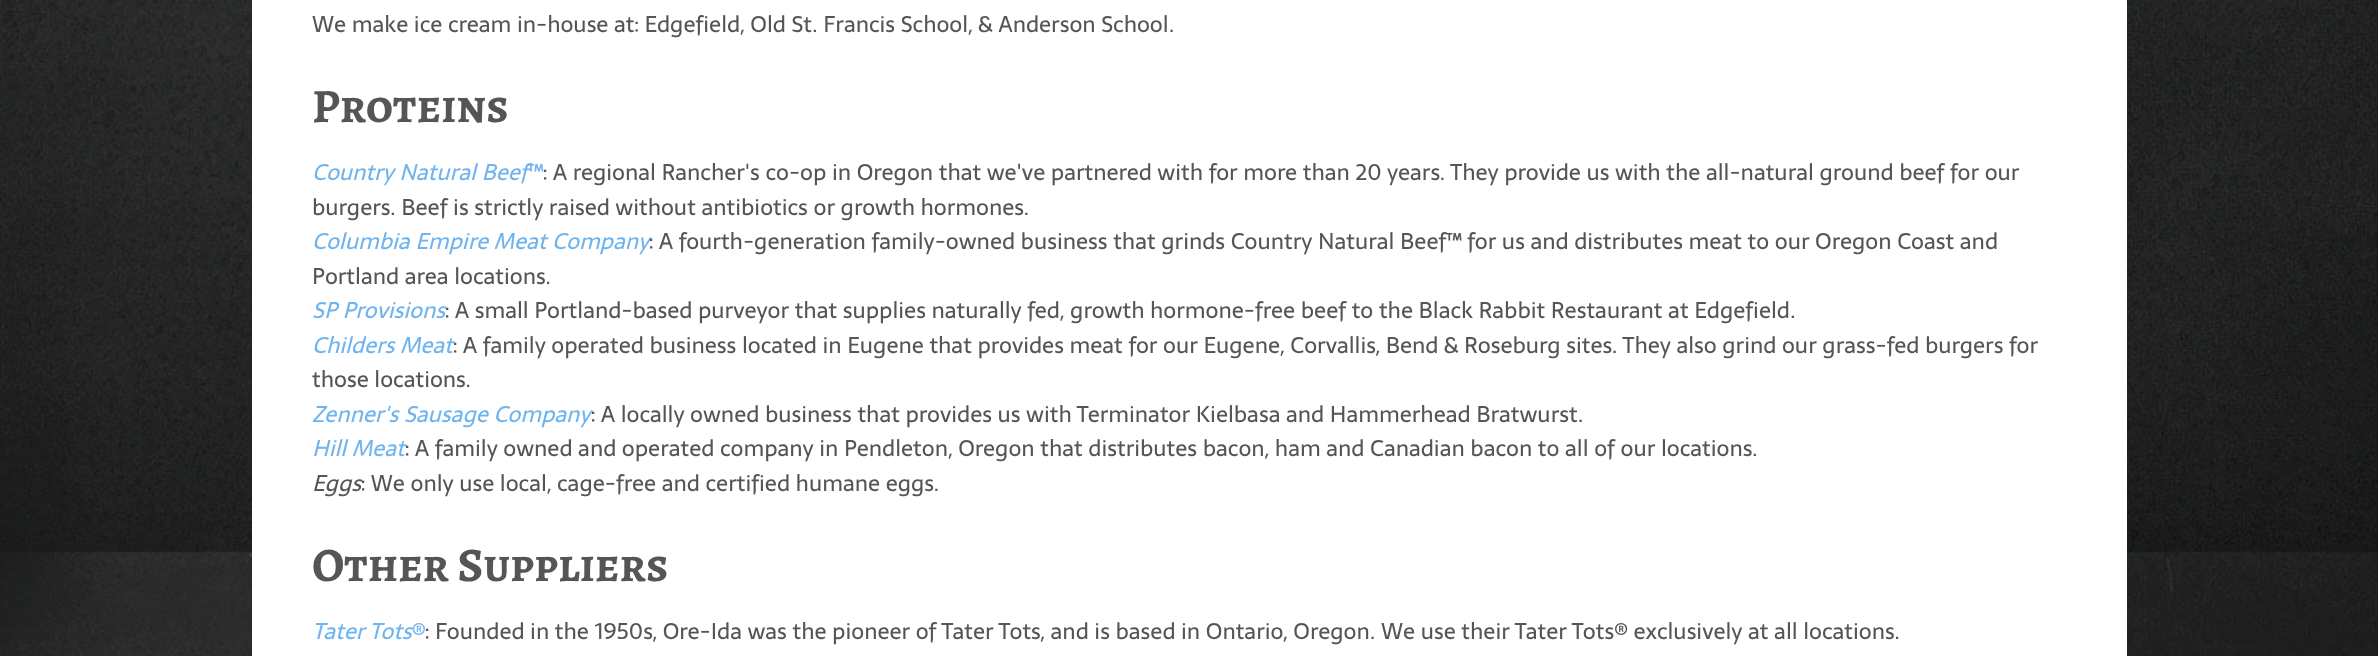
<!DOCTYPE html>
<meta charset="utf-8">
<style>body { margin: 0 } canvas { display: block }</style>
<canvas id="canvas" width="2378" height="656"></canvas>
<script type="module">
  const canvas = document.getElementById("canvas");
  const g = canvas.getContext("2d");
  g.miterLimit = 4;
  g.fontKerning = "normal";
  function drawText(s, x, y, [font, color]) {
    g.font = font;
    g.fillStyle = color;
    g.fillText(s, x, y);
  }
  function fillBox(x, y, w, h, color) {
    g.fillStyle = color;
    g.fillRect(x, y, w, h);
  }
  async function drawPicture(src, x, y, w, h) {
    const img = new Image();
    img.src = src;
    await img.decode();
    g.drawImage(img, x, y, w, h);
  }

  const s1 = ["22.5px Sarala", "#555555"];
  const s2 = ["bold 48px Alegreya SC", "#555555"];
  const s3 = ["italic 22.5px Sarala", "#6FB4EF"];
  const s4 = ["22.5px Sarala", "#6FB4EF"];
  const s5 = ["italic 22.5px Sarala", "#555555"];

  fillBox(0, 0, 2378, 656, "#FFFFFF");
  await drawPicture("pic1.png", 0, 0, 2378, 656);
  fillBox(252, 0, 1875, 656, "#FFFFFF");
  drawText("We make ice cream in-house at: Edgefield, Old St. Francis School, & Anderson School.", 312, 32, s1);
  drawText("Proteins", 312, 122, s2);
  drawText("Country Natural Beef", 312, 180, s3);
  drawText("™", 528, 180, s4);
  drawText(": A regional Rancher's co-op in Oregon that we've partnered with for more than 20 years. They provide us with the all-natural ground beef for our", 543, 180, s1);
  drawText("burgers. Beef is strictly raised without antibiotics or growth hormones.", 312, 215, s1);
  drawText("Columbia Empire Meat Company", 312, 249, s3);
  drawText(": A fourth-generation family-owned business that grinds Country Natural Beef™ for us and distributes meat to our Oregon Coast and", 649, 249, s1);
  drawText("Portland area locations.", 312, 284, s1);
  drawText("SP Provisions", 312, 318, s3);
  drawText(": A small Portland-based purveyor that supplies naturally fed, growth hormone-free beef to the Black Rabbit Restaurant at Edgefield.", 445, 318, s1);
  drawText("Childers Meat", 312, 353, s3);
  drawText(": A family operated business located in Eugene that provides meat for our Eugene, Corvallis, Bend & Roseburg sites. They also grind our grass-fed burgers for", 453, 353, s1);
  drawText("those locations.", 312, 387, s1);
  drawText("Zenner's Sausage Company", 312, 422, s3);
  drawText(": A locally owned business that provides us with Terminator Kielbasa and Hammerhead Bratwurst.", 591, 422, s1);
  drawText("Hill Meat", 312, 456, s3);
  drawText(": A family owned and operated company in Pendleton, Oregon that distributes bacon, ham and Canadian bacon to all of our locations.", 405, 456, s1);
  drawText("Eggs", 312, 491, s5);
  drawText(": We only use local, cage-free and certified humane eggs.", 361, 491, s1);
  drawText("Other Suppliers", 312, 581, s2);
  drawText("Tater Tots", 312, 639, s3);
  drawText("®", 412, 639, s4);
  drawText(": Founded in the 1950s, Ore-Ida was the pioneer of Tater Tots, and is based in Ontario, Oregon. We use their Tater Tots® exclusively at all locations.", 425, 639, s1);
</script>
